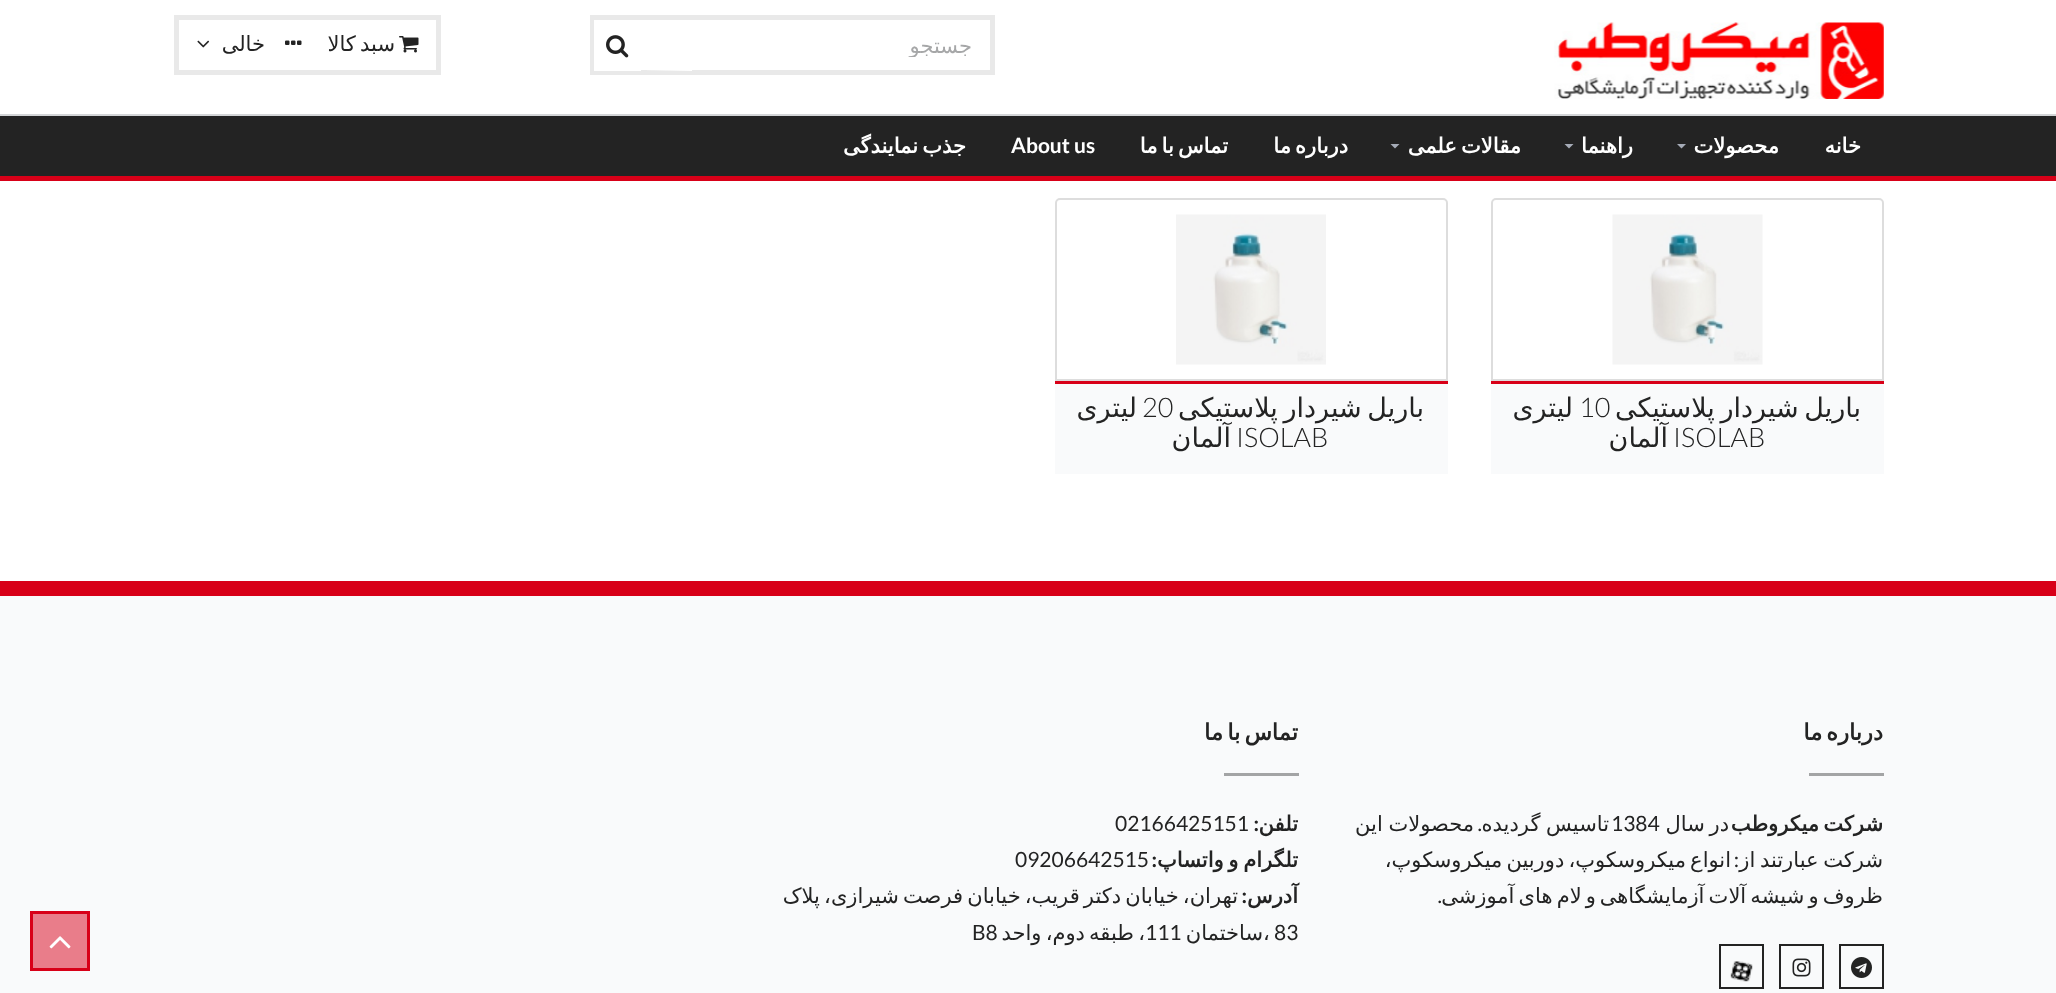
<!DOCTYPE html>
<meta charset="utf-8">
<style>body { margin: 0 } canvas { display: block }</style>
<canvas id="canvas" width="2056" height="993"></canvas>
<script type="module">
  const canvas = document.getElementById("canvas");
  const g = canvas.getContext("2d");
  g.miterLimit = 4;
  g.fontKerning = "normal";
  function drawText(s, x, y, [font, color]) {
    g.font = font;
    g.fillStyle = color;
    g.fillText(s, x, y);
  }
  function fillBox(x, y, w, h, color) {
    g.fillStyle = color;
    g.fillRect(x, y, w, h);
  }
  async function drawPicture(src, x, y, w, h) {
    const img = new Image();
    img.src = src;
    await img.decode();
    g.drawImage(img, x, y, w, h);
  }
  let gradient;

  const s1 = ["21px DejaVu Sans", "#A6A7A8"];
  const s2 = ["21px DejaVu Sans", "#232323"];
  const s3 = ["bold 21px DejaVu Sans", "#FFFFFF"];
  const s4 = ["bold 21px Lato", "#FFFFFF"];
  const s5 = ["27px DejaVu Sans", "#232323"];
  const s6 = ["300 27px Lato", "#232323"];
  const s7 = ["bold 22.5px DejaVu Sans", "#232323"];
  const s8 = ["bold 21px DejaVu Sans", "#232323"];
  const s9 = ["21px Lato", "#232323"];
  const s10 = ["bold 21px Lato", "#232323"];

  fillBox(0, 0, 2056, 993, "#FFFFFF");
  fillBox(0, 176, 2056, 5, "#D80018");
  await drawPicture("pic1.png", 1554, 22, 330, 77);
  g.strokeStyle = "#E9E9E9";
  g.lineWidth = 5;
  g.strokeRect(592.5, 17.5, 400, 55);
  g.save();
  g.beginPath();
  g.rect(612, 32, 360, 25);
  g.clip();
  g.direction = "rtl";
  drawText("جستجو", 972, 53, s1);
  g.restore();
  fillBox(594, 20, 47, 51, "#FFFFFF");
  await drawPicture("pic2.png", 606, 35, 23, 23);
  gradient = g.createLinearGradient(641, 45, 692, 45);
  gradient.addColorStop(0, "rgba(255, 255, 255, 0)");
  gradient.addColorStop(1, "#FFFFFF");
  g.fillStyle = gradient;
  g.fillRect(647, 70, 45, 1);
  g.strokeRect(176.5, 17.5, 262, 55);
  await drawPicture("pic3.png", 399, 36, 20, 17);
  g.wordSpacing = "-2.5px";
  g.direction = "rtl";
  drawText("سبد کالا", 395, 51, s2);
  await drawPicture("pic4.png", 285, 40, 17, 5);
  g.wordSpacing = "0px";
  drawText("خالی", 265, 51, s2);
  await drawPicture("pic5.png", 197, 40, 13, 8);
  fillBox(0, 116, 2056, 60, "#232323");
  fillBox(0, 114, 2056, 2, "#D3D5D7");
  drawText("خانه", 1861, 153, s3);
  drawText("محصولات", 1779, 153, s3);
  g.fillStyle = "#A5ABB7";
  g.beginPath();
  g.moveTo(1677, 144);
  g.lineTo(1686, 144);
  g.lineTo(1681.5, 148.5);
  g.closePath();
  g.fill();
  drawText("راهنما", 1633, 153, s3);
  g.fillStyle = "#A5ABB7";
  g.beginPath();
  g.moveTo(1564.5, 144);
  g.lineTo(1573.5, 144);
  g.lineTo(1569, 148.5);
  g.closePath();
  g.fill();
  g.wordSpacing = "-2.5px";
  drawText("مقالات علمی", 1521, 153, s3);
  g.fillStyle = "#A5ABB7";
  g.beginPath();
  g.moveTo(1390.5, 144);
  g.lineTo(1399.5, 144);
  g.lineTo(1395, 148.5);
  g.closePath();
  g.fill();
  drawText("درباره ما", 1348, 153, s3);
  drawText("تماس با ما", 1228, 153, s3);
  g.wordSpacing = "0px";
  g.direction = "ltr";
  drawText("About us", 1011, 153, s4);
  g.wordSpacing = "-2.5px";
  g.direction = "rtl";
  drawText("جذب نمایندگی", 966, 153, s3);
  g.beginPath();
  g.roundRect(1492, 199, 391, 181, [4, 4, 0, 0]);
  g.strokeStyle = "#DDDDDD";
  g.lineWidth = 2;
  g.stroke();
  await drawPicture("pic6.png", 1612, 214, 151, 151);
  fillBox(1491, 384, 393, 90, "#F9FAFB");
  fillBox(1491, 381, 393, 3, "#D80018");
  g.wordSpacing = "-3px";
  drawText("باریل شیردار پلاستیکی", 1861, 417, s5);
  g.wordSpacing = "0px";
  g.direction = "ltr";
  drawText("10", 1579, 417, s6);
  g.direction = "rtl";
  drawText("لیتری", 1573, 417, s5);
  g.direction = "ltr";
  drawText("ISOLAB", 1673, 447, s6);
  g.direction = "rtl";
  drawText("آلمان", 1668, 447, s5);
  g.beginPath();
  g.roundRect(1056, 199, 391, 181, [4, 4, 0, 0]);
  g.stroke();
  await drawPicture("pic7.png", 1176, 214, 150, 151);
  fillBox(1055, 384, 393, 90, "#F9FAFB");
  fillBox(1055, 381, 393, 3, "#D80018");
  g.wordSpacing = "-3px";
  drawText("باریل شیردار پلاستیکی", 1424, 417, s5);
  g.wordSpacing = "0px";
  g.direction = "ltr";
  drawText("20", 1142, 417, s6);
  g.direction = "rtl";
  drawText("لیتری", 1137, 417, s5);
  g.direction = "ltr";
  drawText("ISOLAB", 1236, 447, s6);
  g.direction = "rtl";
  drawText("آلمان", 1231, 447, s5);
  fillBox(0, 596, 2056, 397, "#F9FAFB");
  fillBox(0, 581, 2056, 15, "#D80018");
  g.save();
  g.beginPath();
  g.rect(1344, 716, 540, 60);
  g.clip();
  g.wordSpacing = "-3px";
  drawText("درباره ما", 1883, 740, s7);
  g.restore();
  fillBox(1809, 773, 75, 3, "#A3A4A5");
  g.wordSpacing = "-2.5px";
  drawText("شرکت میکروطب", 1883, 831, s8);
  g.wordSpacing = "-2px";
  drawText("در سال", 1729, 831, s2);
  g.wordSpacing = "0px";
  g.direction = "ltr";
  drawText("1384", 1611, 831, s9);
  g.wordSpacing = "-1px";
  g.direction = "rtl";
  drawText("تاسیس گردیده", 1609, 831, s2);
  g.wordSpacing = "0px";
  drawText(".", 1482, 831, s9);
  g.wordSpacing = "-1px";
  drawText("محصولات این", 1474, 831, s2);
  g.wordSpacing = "-2px";
  drawText("شرکت عبارتند از", 1883, 867, s2);
  g.wordSpacing = "0px";
  drawText(":", 1739, 867, s9);
  g.wordSpacing = "-2.5px";
  drawText("انواع میکروسکوپ، دوربین میکروسکوپ،", 1731, 867, s2);
  drawText("ظروف و شیشه آلات آزمایشگاهی", 1883, 903, s2);
  drawText("و لام های آموزشی", 1596, 903, s2);
  g.wordSpacing = "0px";
  drawText(".", 1442, 903, s9);
  g.strokeStyle = "#232323";
  g.strokeRect(1840, 945, 43, 43);
  await drawPicture("pic8.png", 1851, 957, 21, 21);
  g.strokeRect(1780, 945, 43, 43);
  await drawPicture("pic9.png", 1792, 958, 19, 19);
  g.strokeRect(1720, 945, 43, 43);
  await drawPicture("pic10.png", 1730, 961, 23, 21);
  g.save();
  g.beginPath();
  g.rect(759, 716, 540, 60);
  g.clip();
  g.wordSpacing = "-3px";
  drawText("تماس با ما", 1298, 740, s7);
  g.restore();
  fillBox(1224, 773, 75, 3, "#A3A4A5");
  drawText("تلفن", 1298, 831, s8);
  drawText(":", 1259, 831, s10);
  g.direction = "ltr";
  drawText("02166425151", 1115, 831, s9);
  g.wordSpacing = "-2px";
  g.direction = "rtl";
  drawText("تلگرام و واتساپ", 1298, 867, s8);
  g.wordSpacing = "0px";
  drawText(":", 1157, 867, s10);
  g.direction = "ltr";
  drawText("09206642515", 1015, 867, s9);
  g.direction = "rtl";
  drawText("آدرس", 1298, 903, s8);
  drawText(":", 1247, 903, s10);
  g.wordSpacing = "-2.5px";
  drawText("تهران، خیابان دکتر قریب، خیابان فرصت شیرازی، پلاک", 1238, 903, s2);
  g.wordSpacing = "0px";
  g.direction = "ltr";
  drawText("83", 1274, 940, s9);
  drawText("،", 1263, 940, s2);
  g.direction = "rtl";
  drawText("ساختمان", 1263, 940, s2);
  g.wordSpacing = "-2.5px";
  drawText("، طبقه دوم، واحد", 1145, 940, s2);
  g.wordSpacing = "0px";
  g.direction = "ltr";
  drawText("111", 1145, 940, s9);
  drawText("B8", 972, 940, s9);
  g.fillStyle = "#E97D8A";
  g.beginPath();
  g.rect(31.5, 912.5, 57, 57);
  g.fill();
  g.strokeStyle = "#D80018";
  g.lineWidth = 3;
  g.stroke();
  await drawPicture("pic11.png", 49, 936, 22, 13);
</script>
